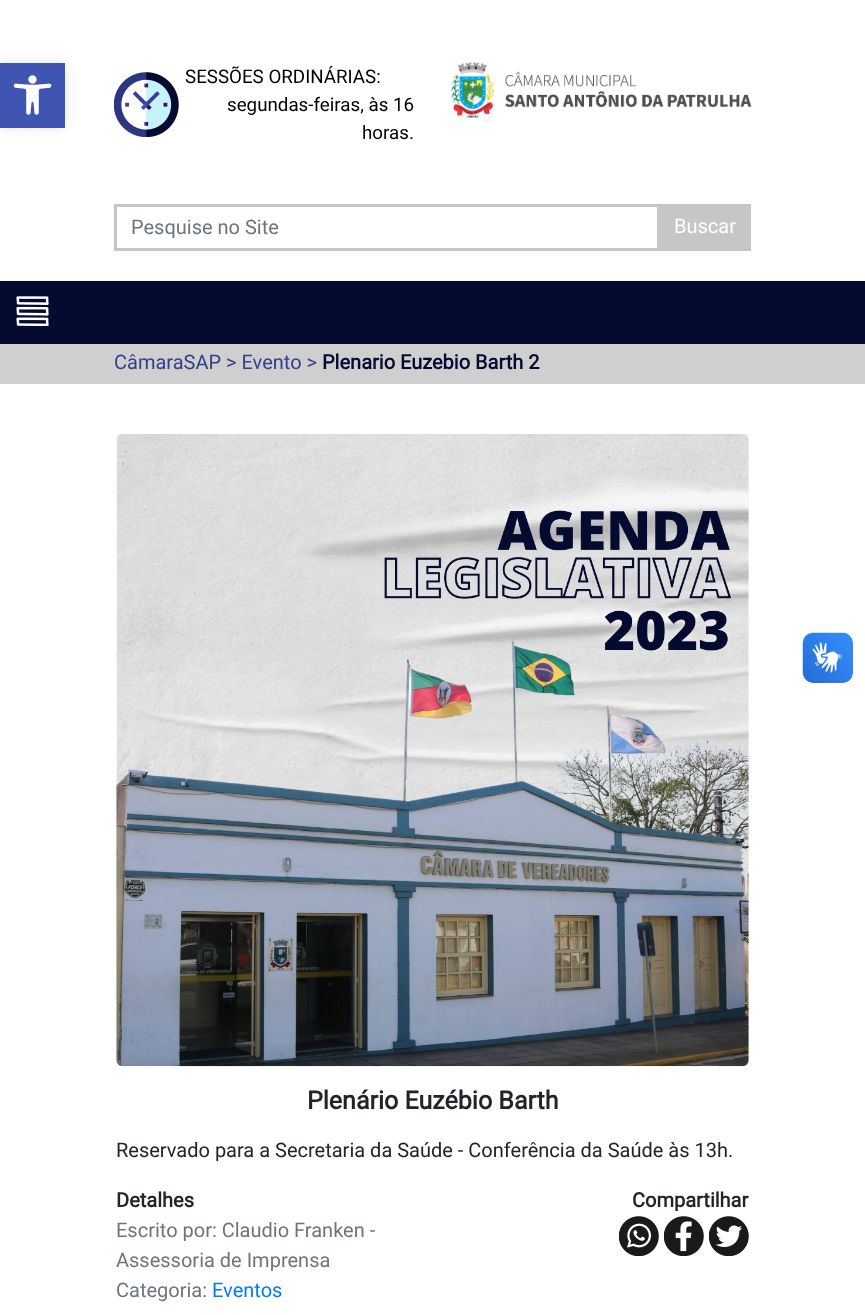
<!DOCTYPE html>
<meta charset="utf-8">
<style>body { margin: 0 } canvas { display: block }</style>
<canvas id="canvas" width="865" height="1315"></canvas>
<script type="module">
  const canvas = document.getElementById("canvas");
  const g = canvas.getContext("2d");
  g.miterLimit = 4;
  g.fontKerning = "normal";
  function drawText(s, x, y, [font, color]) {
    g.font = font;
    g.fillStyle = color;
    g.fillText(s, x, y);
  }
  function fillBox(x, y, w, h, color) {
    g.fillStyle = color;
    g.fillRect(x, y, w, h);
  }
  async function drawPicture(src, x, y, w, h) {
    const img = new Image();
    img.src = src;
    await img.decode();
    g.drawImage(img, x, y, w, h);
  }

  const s1 = ["18.75px Roboto", "#000000"];
  const s2 = ["20px Roboto", "#6C757D"];
  const s3 = ["20px Roboto", "#FFFFFF"];
  const s4 = ["20px Roboto", "#343E8B"];
  const s5 = ["bold 20px Roboto", "#050A30"];
  const s6 = ["bold 25px Roboto", "#212529"];
  const s7 = ["20px Roboto", "#212529"];
  const s8 = ["bold 20px Roboto", "#212529"];
  const s9 = ["20px Roboto", "#007BFF"];

  fillBox(0, 0, 865, 1315, "#FFFFFF");
  g.fillStyle = "rgba(0, 0, 0, 0.1)";
  g.filter = "blur(6px)";
  g.beginPath();
  g.rect(0, 63, 65, 65);
  g.fill();
  g.filter = "none";
  fillBox(0, 63, 65, 65, "#4054B2");
  await drawPicture("pic1.png", 13, 75, 39, 40);
  await drawPicture("pic2.png", 114, 72, 65, 65);
  drawText("SESSÕES ORDINÁRIAS:", 185, 83, s1);
  drawText("segundas-feiras, às 16", 227, 111, s1);
  drawText("horas.", 362, 139, s1);
  await drawPicture("pic3.png", 451, 62, 301, 56);
  g.strokeStyle = "#C6C6C9";
  g.lineWidth = 3;
  g.strokeRect(115.5, 205.5, 543, 44);
  drawText("Pesquise no Site", 131, 234, s2);
  fillBox(660, 204, 91, 47, "#C6C6C9");
  drawText("Buscar", 674, 233, s3);
  await drawPicture("pic4.png", 802, 632, 51, 51);
  await drawPicture("pic5.png", 803, 633, 50, 50);
  fillBox(0, 281, 865, 63, "#050A30");
  await drawPicture("pic6.png", 16, 296, 33, 30);
  fillBox(0, 344, 865, 40, "#CFCFCF");
  drawText("CâmaraSAP > Evento >", 114, 369, s4);
  drawText("Plenario Euzebio Barth 2", 322, 369, s5);
  await drawPicture("pic7.png", 116, 434, 633, 633);
  drawText("Plenário Euzébio Barth", 307, 1109, s6);
  drawText("Reservado para a Secretaria da Saúde - Conferência da Saúde às 13h.", 116, 1157, s7);
  drawText("Detalhes", 116, 1207, s8);
  drawText("Escrito por: Claudio Franken -", 116, 1237, s2);
  drawText("Assessoria de Imprensa", 116, 1267, s2);
  drawText("Categoria:", 116, 1297, s2);
  drawText("Eventos", 212, 1297, s9);
  drawText("Compartilhar", 632, 1207, s8);
  await drawPicture("pic8.png", 619, 1216, 40, 40);
  await drawPicture("pic9.png", 664, 1216, 40, 40);
  await drawPicture("pic10.png", 709, 1216, 40, 40);
</script>
